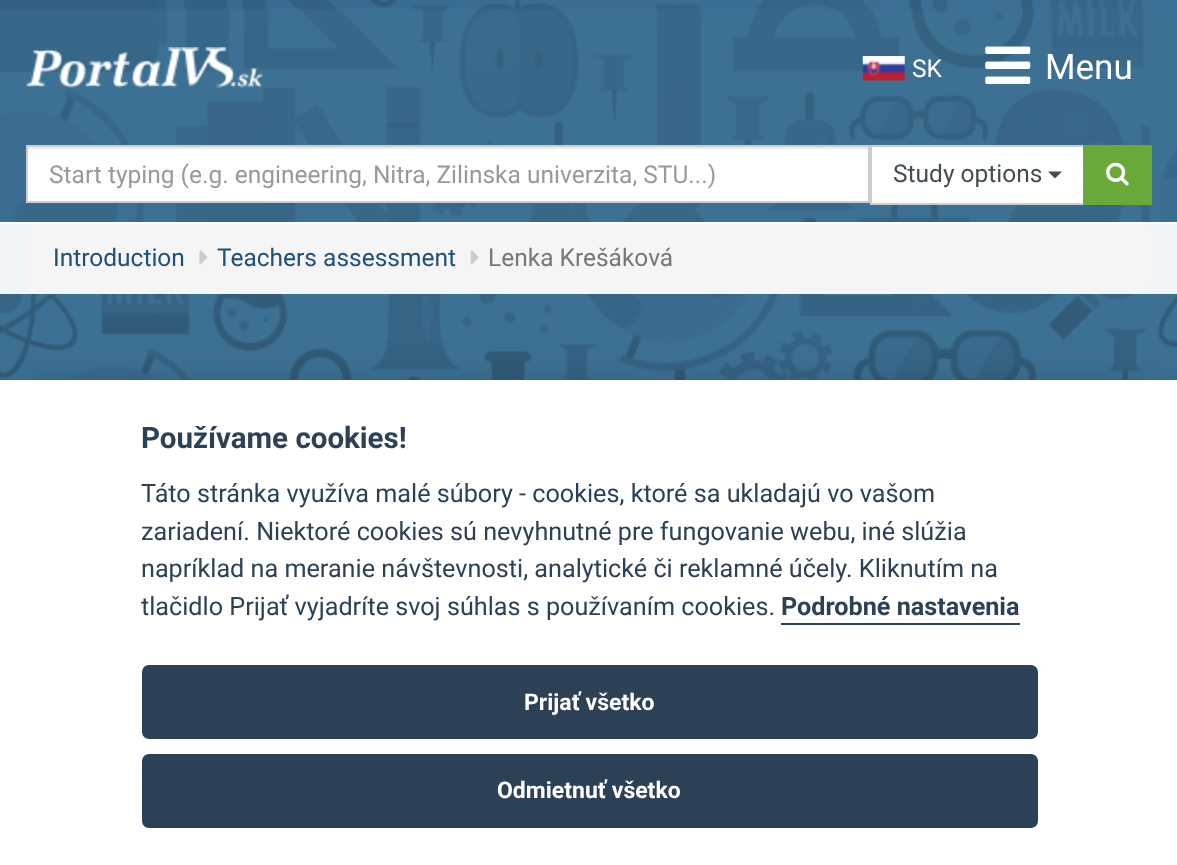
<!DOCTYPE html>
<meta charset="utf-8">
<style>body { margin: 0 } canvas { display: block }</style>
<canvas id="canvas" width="1177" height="865"></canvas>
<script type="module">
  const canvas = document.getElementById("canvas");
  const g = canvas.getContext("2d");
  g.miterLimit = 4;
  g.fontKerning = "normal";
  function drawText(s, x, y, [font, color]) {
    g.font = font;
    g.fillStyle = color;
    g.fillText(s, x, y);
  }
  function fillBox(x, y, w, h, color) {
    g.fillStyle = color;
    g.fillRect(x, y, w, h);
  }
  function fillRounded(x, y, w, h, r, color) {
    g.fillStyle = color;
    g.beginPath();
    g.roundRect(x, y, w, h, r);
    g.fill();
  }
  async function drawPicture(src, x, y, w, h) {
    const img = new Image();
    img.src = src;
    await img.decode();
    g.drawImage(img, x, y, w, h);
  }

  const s1 = ["24.5px Roboto", "#FFFFFF"];
  const s2 = ["35px Roboto", "#FFFFFF"];
  const s3 = ["24.5px Roboto", "#999999"];
  const s4 = ["24.5px Roboto", "#434E53"];
  const s5 = ["24.5px Roboto", "#205078"];
  const s6 = ["24.5px Roboto", "#777777"];
  const s7 = ["bold 29.5px Roboto", "#2D4156"];
  const s8 = ["25.2px Roboto", "#2D4156"];
  const s9 = ["bold 25.2px Roboto", "#2D4156"];
  const s10 = ["bold 23px Roboto", "#FFFFFF"];

  fillBox(0, 0, 1177, 865, "#F0F5F8");
  await drawPicture("pic1.png", 0, 0, 1177, 222);
  fillBox(0, 222, 1177, 2, "#FFFFFF");
  await drawPicture("pic2.png", 26, 47, 237, 41);
  await drawPicture("pic3.png", 862, 56, 43, 25);
  drawText("SK", 912, 77, s1);
  await drawPicture("pic4.png", 985, 46, 46, 38);
  drawText("Menu", 1045, 79, s2);
  fillBox(28, 149, 840, 52, "#FFFFFF");
  fillBox(28, 147, 840, 2, "#ECECEC");
  g.strokeStyle = "#CCCCCC";
  g.lineWidth = 2;
  g.strokeRect(27, 146, 842, 56);
  drawText("Start typing (e.g. engineering, Nitra, Zilinska univerzita, STU...)", 49, 183, s3);
  g.fillStyle = "#FFFFFF";
  g.beginPath();
  g.rect(871, 146, 213, 58);
  g.fill();
  g.stroke();
  drawText("Study options", 893, 182, s4);
  g.beginPath();
  g.moveTo(1048, 171.5);
  g.lineTo(1062, 171.5);
  g.lineTo(1055, 178.5);
  g.closePath();
  g.fill();
  fillBox(1083, 145, 69, 60, "#69A93A");
  await drawPicture("pic5.png", 1106, 162, 23, 24);
  fillRounded(26, 224, 1126, 70, 7, "#F5F5F5");
  drawText("Introduction", 53, 266, s5);
  await drawPicture("pic6.png", 199, 250, 9, 15);
  drawText("Teachers assessment", 217, 266, s5);
  await drawPicture("pic7.png", 470, 250, 9, 15);
  drawText("Lenka Krešáková", 488, 266, s6);
  await drawPicture("pic8.png", 0, 294, 1177, 86);
  g.fillStyle = "rgba(2, 2, 3, 0.28)";
  g.filter = "blur(26px)";
  g.beginPath();
  g.rect(0, 397, 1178, 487);
  g.fill();
  g.filter = "none";
  fillBox(0, 380, 1177, 485, "#FFFFFF");
  drawText("Používame cookies!", 141, 448, s7);
  drawText("Táto stránka využíva malé súbory - cookies, ktoré sa ukladajú vo vašom", 141, 502, s8);
  drawText("zariadení. Niektoré cookies sú nevyhnutné pre fungovanie webu, iné slúžia", 141, 540, s8);
  drawText("napríklad na meranie návštevnosti, analytické či reklamné účely. Kliknutím na", 141, 577, s8);
  drawText("tlačidlo Prijať vyjadríte svoj súhlas s používaním cookies.", 141, 615, s8);
  drawText("Podrobné nastavenia", 781, 615, s9);
  fillBox(781, 623, 239, 2, "#2D4156");
  fillRounded(142, 665, 896, 74, 7, "#2D4156");
  drawText("Prijať všetko", 524, 710, s10);
  fillRounded(142, 754, 896, 74, 7, "#2D4156");
  drawText("Odmietnuť všetko", 497, 798, s10);
</script>
